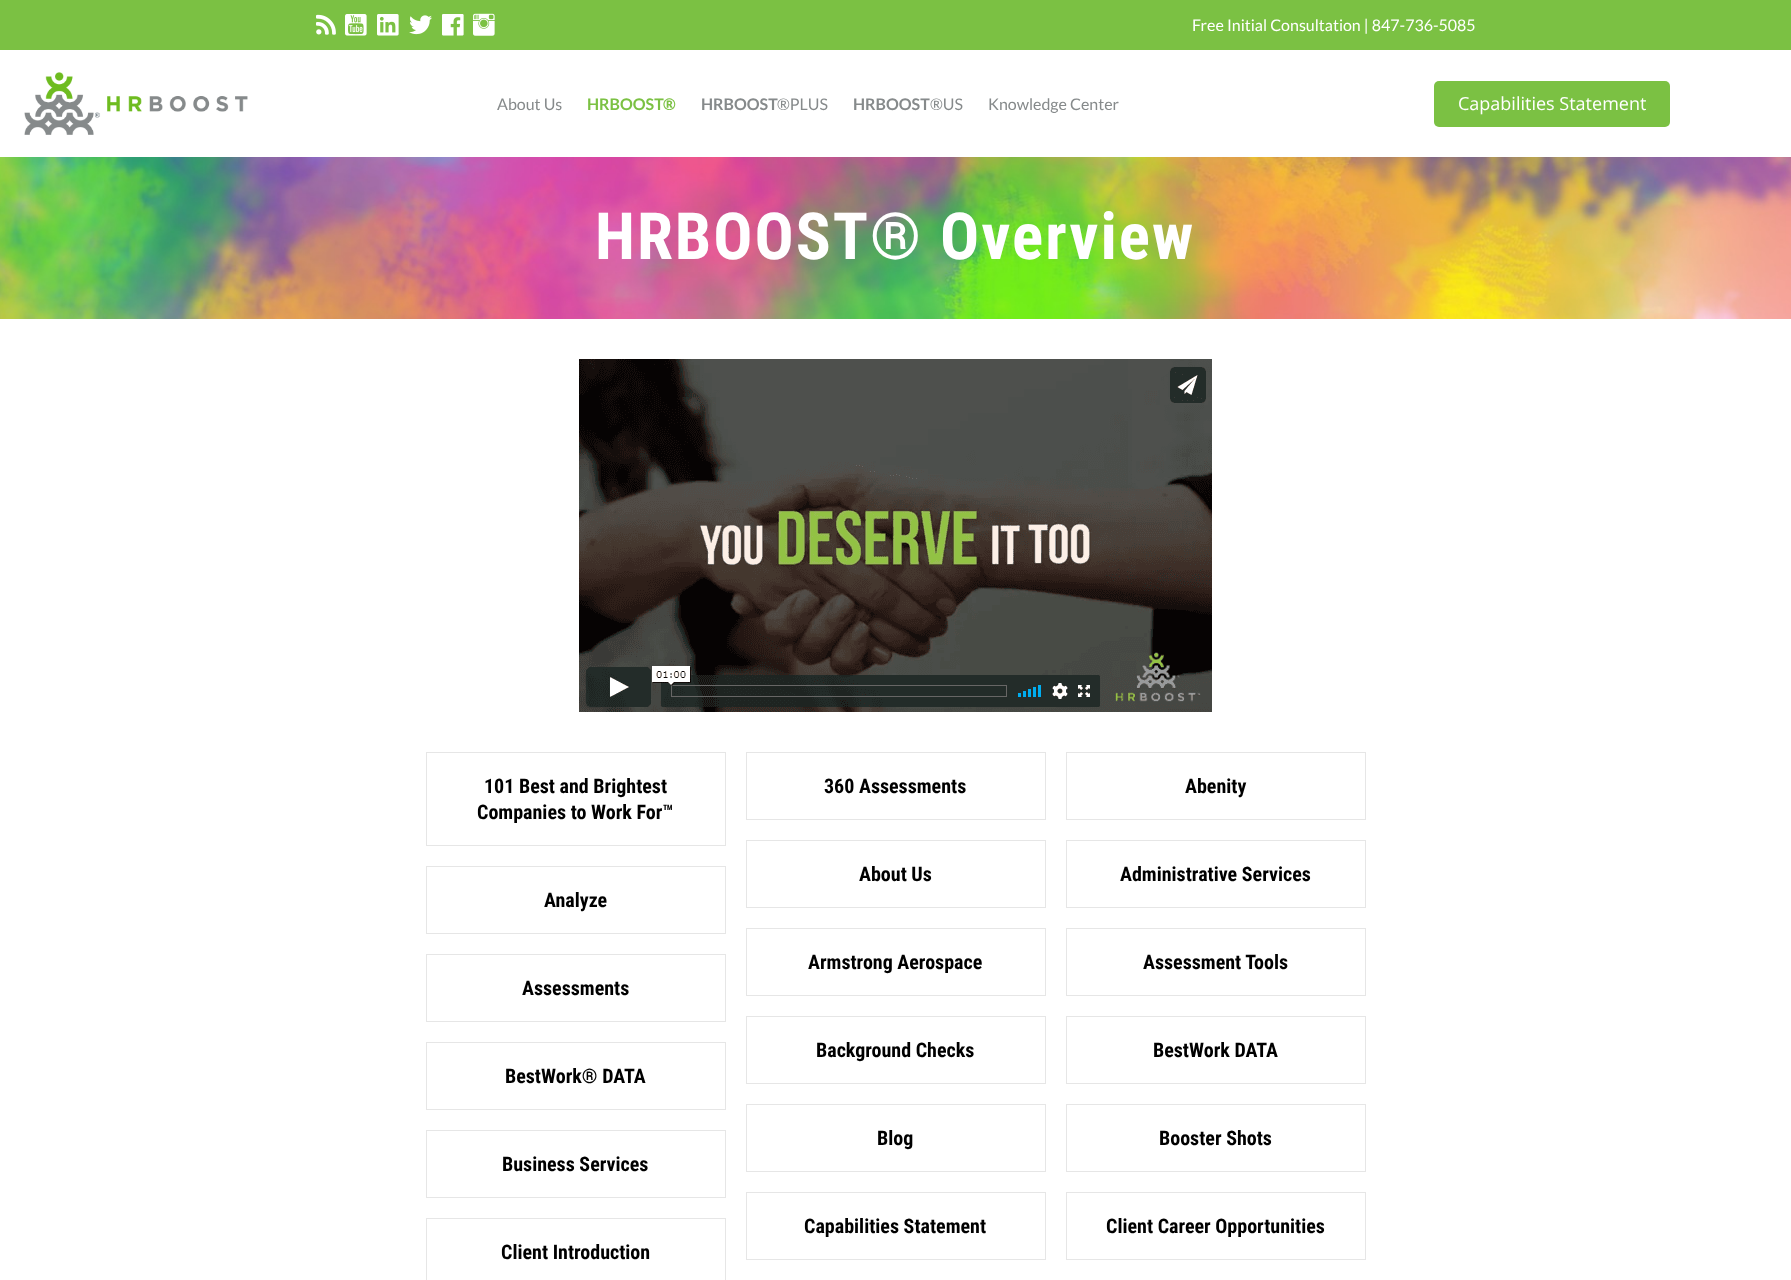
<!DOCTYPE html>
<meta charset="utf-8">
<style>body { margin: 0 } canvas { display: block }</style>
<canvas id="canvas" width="1791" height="1280"></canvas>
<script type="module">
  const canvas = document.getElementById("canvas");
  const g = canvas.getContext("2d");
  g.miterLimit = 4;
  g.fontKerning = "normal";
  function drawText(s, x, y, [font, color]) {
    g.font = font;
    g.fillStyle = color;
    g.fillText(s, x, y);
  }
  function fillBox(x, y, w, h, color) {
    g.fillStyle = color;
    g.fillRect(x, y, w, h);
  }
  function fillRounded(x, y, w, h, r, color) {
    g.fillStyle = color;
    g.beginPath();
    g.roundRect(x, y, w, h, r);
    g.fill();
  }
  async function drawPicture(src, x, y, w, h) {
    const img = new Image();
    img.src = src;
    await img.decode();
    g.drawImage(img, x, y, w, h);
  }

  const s1 = ["16px Lato", "#FFFFFF"];
  const s2 = ["16px Lato", "#868A8B"];
  const s3 = ["bold 16px Lato", "#7BC143"];
  const s4 = ["bold 16px Lato", "#868A8B"];
  const s5 = ["18px Open Sans", "#FFFFFF"];
  const s6 = ["bold 65px Roboto Condensed", "#FFFFFF"];
  const s7 = ["bold 20px Roboto Condensed", "#000000"];

  fillBox(0, 0, 1791, 1280, "#FFFFFF");
  fillBox(0, 0, 1791, 50, "#7BC143");
  await drawPicture("pic1.png", 316, 14, 20, 21);
  await drawPicture("pic2.png", 345, 14, 22, 22);
  await drawPicture("pic3.png", 377, 14, 22, 22);
  await drawPicture("pic4.png", 409, 15, 23, 20);
  await drawPicture("pic5.png", 442, 14, 22, 22);
  await drawPicture("pic6.png", 473, 13, 22, 23);
  drawText("Free Initial Consultation | 847-736-5085", 1192, 31, s1);
  await drawPicture("pic7.png", 24, 72, 224, 63);
  drawText("About Us", 497, 110, s2);
  drawText("HRBOOST®", 587, 110, s3);
  drawText("HRBOOST", 701, 110, s4);
  drawText("®PLUS", 777, 110, s2);
  drawText("HRBOOST", 853, 110, s4);
  drawText("®US", 930, 110, s2);
  drawText("Knowledge Center", 988, 110, s2);
  fillRounded(1434, 81, 236, 46, 5, "#7BC143");
  drawText("Capabilities Statement", 1458, 110, s5);
  await drawPicture("pic8.png", 0, 157, 1791, 162);
  g.letterSpacing = "2px";
  drawText("HRBOOST® Overview", 595, 259, s6);
  await drawPicture("pic9.png", 579, 359, 633, 353);
  g.strokeStyle = "#E6E6E6";
  g.strokeRect(426.5, 752.5, 299, 93);
  g.letterSpacing = "0px";
  drawText("101 Best and Brightest", 484, 793, s7);
  drawText("Companies to Work For™", 477, 819, s7);
  g.strokeRect(746.5, 752.5, 299, 67);
  drawText("360 Assessments", 824, 793, s7);
  g.strokeRect(1066.5, 752.5, 299, 67);
  drawText("Abenity", 1185, 793, s7);
  g.strokeRect(746.5, 840.5, 299, 67);
  drawText("About Us", 859, 881, s7);
  g.strokeRect(1066.5, 840.5, 299, 67);
  drawText("Administrative Services", 1120, 881, s7);
  g.strokeRect(426.5, 866.5, 299, 67);
  drawText("Analyze", 544, 907, s7);
  g.strokeRect(746.5, 928.5, 299, 67);
  drawText("Armstrong Aerospace", 808, 969, s7);
  g.strokeRect(1066.5, 928.5, 299, 67);
  drawText("Assessment Tools", 1143, 969, s7);
  g.strokeRect(426.5, 954.5, 299, 67);
  drawText("Assessments", 522, 995, s7);
  g.strokeRect(746.5, 1016.5, 299, 67);
  drawText("Background Checks", 816, 1057, s7);
  g.strokeRect(1066.5, 1016.5, 299, 67);
  drawText("BestWork DATA", 1153, 1057, s7);
  g.strokeRect(426.5, 1042.5, 299, 67);
  drawText("BestWork® DATA", 505, 1083, s7);
  g.strokeRect(746.5, 1104.5, 299, 67);
  drawText("Blog", 877, 1145, s7);
  g.strokeRect(1066.5, 1104.5, 299, 67);
  drawText("Booster Shots", 1159, 1145, s7);
  g.strokeRect(426.5, 1130.5, 299, 67);
  drawText("Business Services", 502, 1171, s7);
  g.strokeRect(746.5, 1192.5, 299, 67);
  drawText("Capabilities Statement", 804, 1233, s7);
  g.strokeRect(1066.5, 1192.5, 299, 67);
  drawText("Client Career Opportunities", 1106, 1233, s7);
  g.strokeRect(426.5, 1218.5, 299, 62);
  drawText("Client Introduction", 501, 1259, s7);
</script>
